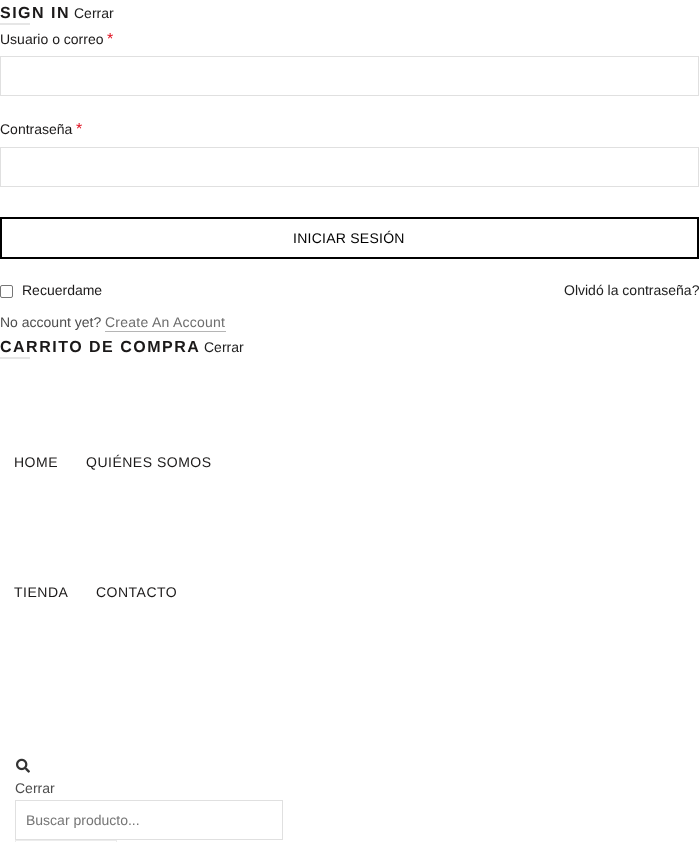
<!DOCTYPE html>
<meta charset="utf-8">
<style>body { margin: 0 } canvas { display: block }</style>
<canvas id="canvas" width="699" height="842"></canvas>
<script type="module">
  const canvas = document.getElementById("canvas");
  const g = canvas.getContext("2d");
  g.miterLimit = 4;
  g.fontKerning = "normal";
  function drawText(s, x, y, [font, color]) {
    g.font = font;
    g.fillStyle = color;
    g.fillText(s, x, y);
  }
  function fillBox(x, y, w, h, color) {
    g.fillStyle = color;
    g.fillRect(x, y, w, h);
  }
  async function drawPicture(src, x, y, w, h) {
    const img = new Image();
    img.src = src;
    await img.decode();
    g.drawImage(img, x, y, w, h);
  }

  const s1 = ["bold 16px Liberation Sans", "#1B1919"];
  const s2 = ["14px Liberation Sans", "#202020"];
  const s3 = ["14px Liberation Sans", "#1B1919"];
  const s4 = ["16px Liberation Sans", "#E01020"];
  const s5 = ["14px Liberation Sans", "#000000"];
  const s6 = ["14px Liberation Sans", "#4C4C4C"];
  const s7 = ["14px Liberation Sans", "#6D6D6D"];
  const s8 = ["14px Liberation Sans", "#757575"];

  fillBox(0, 0, 699, 842, "#FFFFFF");
  g.letterSpacing = "1.5px";
  drawText("SIGN IN", 0, 18, s1);
  fillBox(0, 23, 30, 2, "#E6E6E6");
  g.letterSpacing = "0px";
  drawText("Cerrar", 74, 18, s2);
  drawText("Usuario o correo", 0, 44, s3);
  drawText("*", 107, 44, s4);
  g.strokeStyle = "#E0E0E0";
  g.strokeRect(0.5, 56.5, 698, 39);
  drawText("Contraseña", 0, 134, s3);
  drawText("*", 76, 134, s4);
  g.strokeRect(0.5, 147.5, 698, 39);
  g.strokeStyle = "#000000";
  g.lineWidth = 2;
  g.strokeRect(1, 218, 697, 40);
  g.letterSpacing = "0.25px";
  drawText("INICIAR SESIÓN", 293, 243, s5);
  g.beginPath();
  g.roundRect(0.5, 285.5, 12, 12, 1.5);
  g.strokeStyle = "#767676";
  g.lineWidth = 1;
  g.stroke();
  g.letterSpacing = "0px";
  drawText("Recuerdame", 22, 295, s3);
  drawText("Olvidó la contraseña?", 564, 295, s2);
  drawText("No account yet?", 0, 327, s6);
  fillBox(105, 331, 121, 1, "#B5B5B5");
  g.letterSpacing = "0.25px";
  drawText("Create An Account", 105, 327, s7);
  g.letterSpacing = "1.5px";
  drawText("CARRITO DE COMPRA", 0, 352, s1);
  fillBox(0, 357, 30, 2, "#E6E6E6");
  g.letterSpacing = "0px";
  drawText("Cerrar", 204, 352, s2);
  g.letterSpacing = "0.5px";
  drawText("HOME", 14, 467, s3);
  drawText("QUIÉNES SOMOS", 86, 467, s3);
  drawText("TIENDA", 14, 597, s3);
  drawText("CONTACTO", 96, 597, s3);
  await drawPicture("pic1.png", 16, 758, 14, 15);
  g.letterSpacing = "0px";
  drawText("Cerrar", 15, 793, s6);
  g.strokeStyle = "#E0E0E0";
  g.strokeRect(15.5, 800.5, 267, 39);
  drawText("Buscar producto...", 26, 825, s8);
  g.strokeStyle = "#ECECEC";
  g.strokeRect(15.5, 840.5, 101, 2);
</script>
